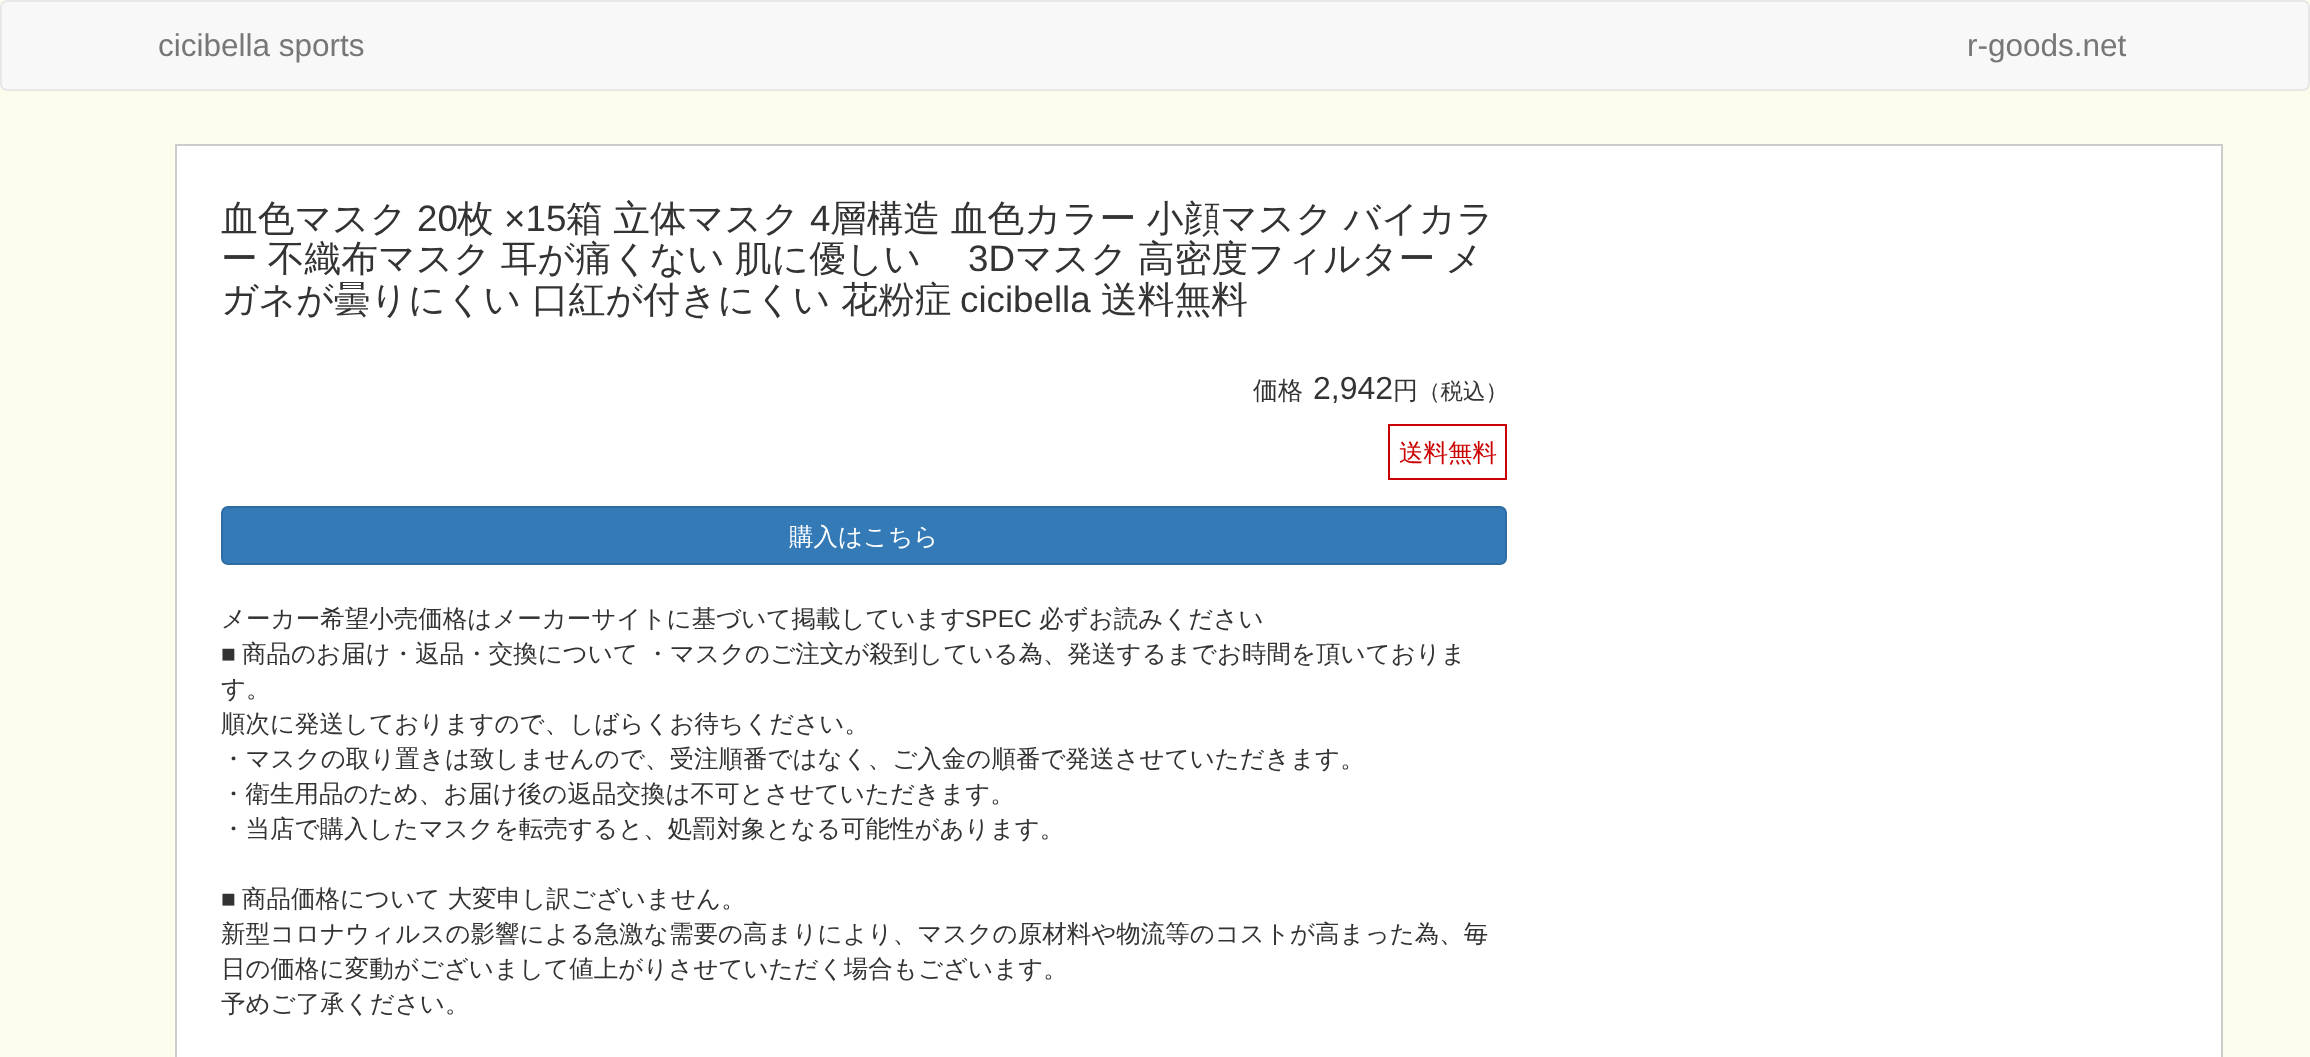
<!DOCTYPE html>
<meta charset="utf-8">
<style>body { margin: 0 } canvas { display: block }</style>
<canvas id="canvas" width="2310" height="1057"></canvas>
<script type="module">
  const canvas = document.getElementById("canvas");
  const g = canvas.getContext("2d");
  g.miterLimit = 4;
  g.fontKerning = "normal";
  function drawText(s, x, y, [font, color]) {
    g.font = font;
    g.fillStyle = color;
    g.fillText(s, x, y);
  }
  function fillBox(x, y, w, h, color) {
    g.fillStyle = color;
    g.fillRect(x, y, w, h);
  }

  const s1 = ["31.5px Liberation Sans", "#777777"];
  const s2 = ["500 36.75px WenQuanYi Zen Hei", "#333333"];
  const s3 = ["36.75px Liberation Sans", "#333333"];
  const s4 = ["500 25px WenQuanYi Zen Hei", "#333333"];
  const s5 = ["32px Liberation Sans", "#333333"];
  const s6 = ["500 22.5px WenQuanYi Zen Hei", "#333333"];
  const s7 = ["500 24.5px WenQuanYi Zen Hei", "#CA0001"];
  const s8 = ["500 24.5px WenQuanYi Zen Hei", "#FFFFFF"];
  const s9 = ["500 24.5px WenQuanYi Zen Hei", "#333333"];
  const s10 = ["24.5px Liberation Sans", "#333333"];

  fillBox(0, 0, 2310, 1057, "#FDFDEE");
  g.fillStyle = "#F8F8F8";
  g.beginPath();
  g.roundRect(1, 1, 2308, 89, 6);
  g.fill();
  g.strokeStyle = "#E7E7E7";
  g.lineWidth = 2;
  g.stroke();
  drawText("cicibella sports", 158, 56, s1);
  drawText("r-goods.net", 1967, 56, s1);
  g.fillStyle = "#FFFFFF";
  g.beginPath();
  g.rect(176, 145, 2046, 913);
  g.fill();
  g.strokeStyle = "#CCCCCC";
  g.stroke();
  drawText("血色マスク", 221, 231, s2);
  drawText("20", 417, 231, s3);
  drawText("枚", 457, 231, s2);
  drawText("×15", 504, 231, s3);
  g.wordSpacing = "-0.5px";
  drawText("箱 立体マスク", 566, 231, s2);
  g.wordSpacing = "0px";
  drawText("4", 810, 231, s3);
  g.wordSpacing = "-0.5px";
  drawText("層構造 血色カラー 小顔マスク バイカラ", 830, 231, s2);
  g.wordSpacing = "-1px";
  drawText("ー 不織布マスク 耳が痛くない 肌に優しい", 221, 271, s2);
  g.wordSpacing = "0px";
  drawText("3D", 968, 271, s3);
  g.wordSpacing = "-1px";
  drawText("マスク 高密度フィルター メ", 1015, 271, s2);
  g.wordSpacing = "0px";
  drawText("ガネが曇りにくい 口紅が付きにくい 花粉症", 221, 312, s2);
  drawText("cicibella", 960, 312, s3);
  drawText("送料無料", 1101, 312, s2);
  drawText("価格", 1253, 399, s4);
  drawText("2,942", 1313, 399, s5);
  drawText("円", 1393, 399, s4);
  drawText("（税込）", 1418, 399, s6);
  g.strokeStyle = "#CA0001";
  g.strokeRect(1389, 425, 117, 54);
  drawText("送料無料", 1399, 461, s7);
  g.fillStyle = "#337AB7";
  g.beginPath();
  g.roundRect(222, 507, 1284, 57, 6);
  g.fill();
  g.strokeStyle = "#2E6DA4";
  g.stroke();
  drawText("購入はこちら", 789, 545, s8);
  drawText("メーカー希望小売価格はメーカーサイトに基づいて掲載しています", 221, 627, s9);
  drawText("SPEC", 965, 627, s10);
  drawText("必ずお読みください", 1039, 627, s9);
  drawText("■", 221, 662, s10);
  drawText("商品のお届け・返品・交換について ・マスクのご注文が殺到している為、発送するまでお時間を頂いておりま", 242, 662, s9);
  drawText("す。", 221, 697, s9);
  drawText("順次に発送しておりますので、しばらくお待ちください。", 221, 732, s9);
  drawText("・マスクの取り置きは致しませんので、受注順番ではなく、ご入金の順番で発送させていただきます。", 221, 767, s9);
  drawText("・衛生用品のため、お届け後の返品交換は不可とさせていただきます。", 221, 802, s9);
  drawText("・当店で購入したマスクを転売すると、処罰対象となる可能性があります。", 221, 837, s9);
  drawText("■", 221, 907, s10);
  drawText("商品価格について 大変申し訳ございません。", 242, 907, s9);
  drawText("新型コロナウィルスの影響による急激な需要の高まりにより、マスクの原材料や物流等のコストが高まった為、毎", 221, 942, s9);
  drawText("日の価格に変動がございまして値上がりさせていただく場合もございます。", 221, 977, s9);
  drawText("予めご了承ください。", 221, 1012, s9);
</script>
